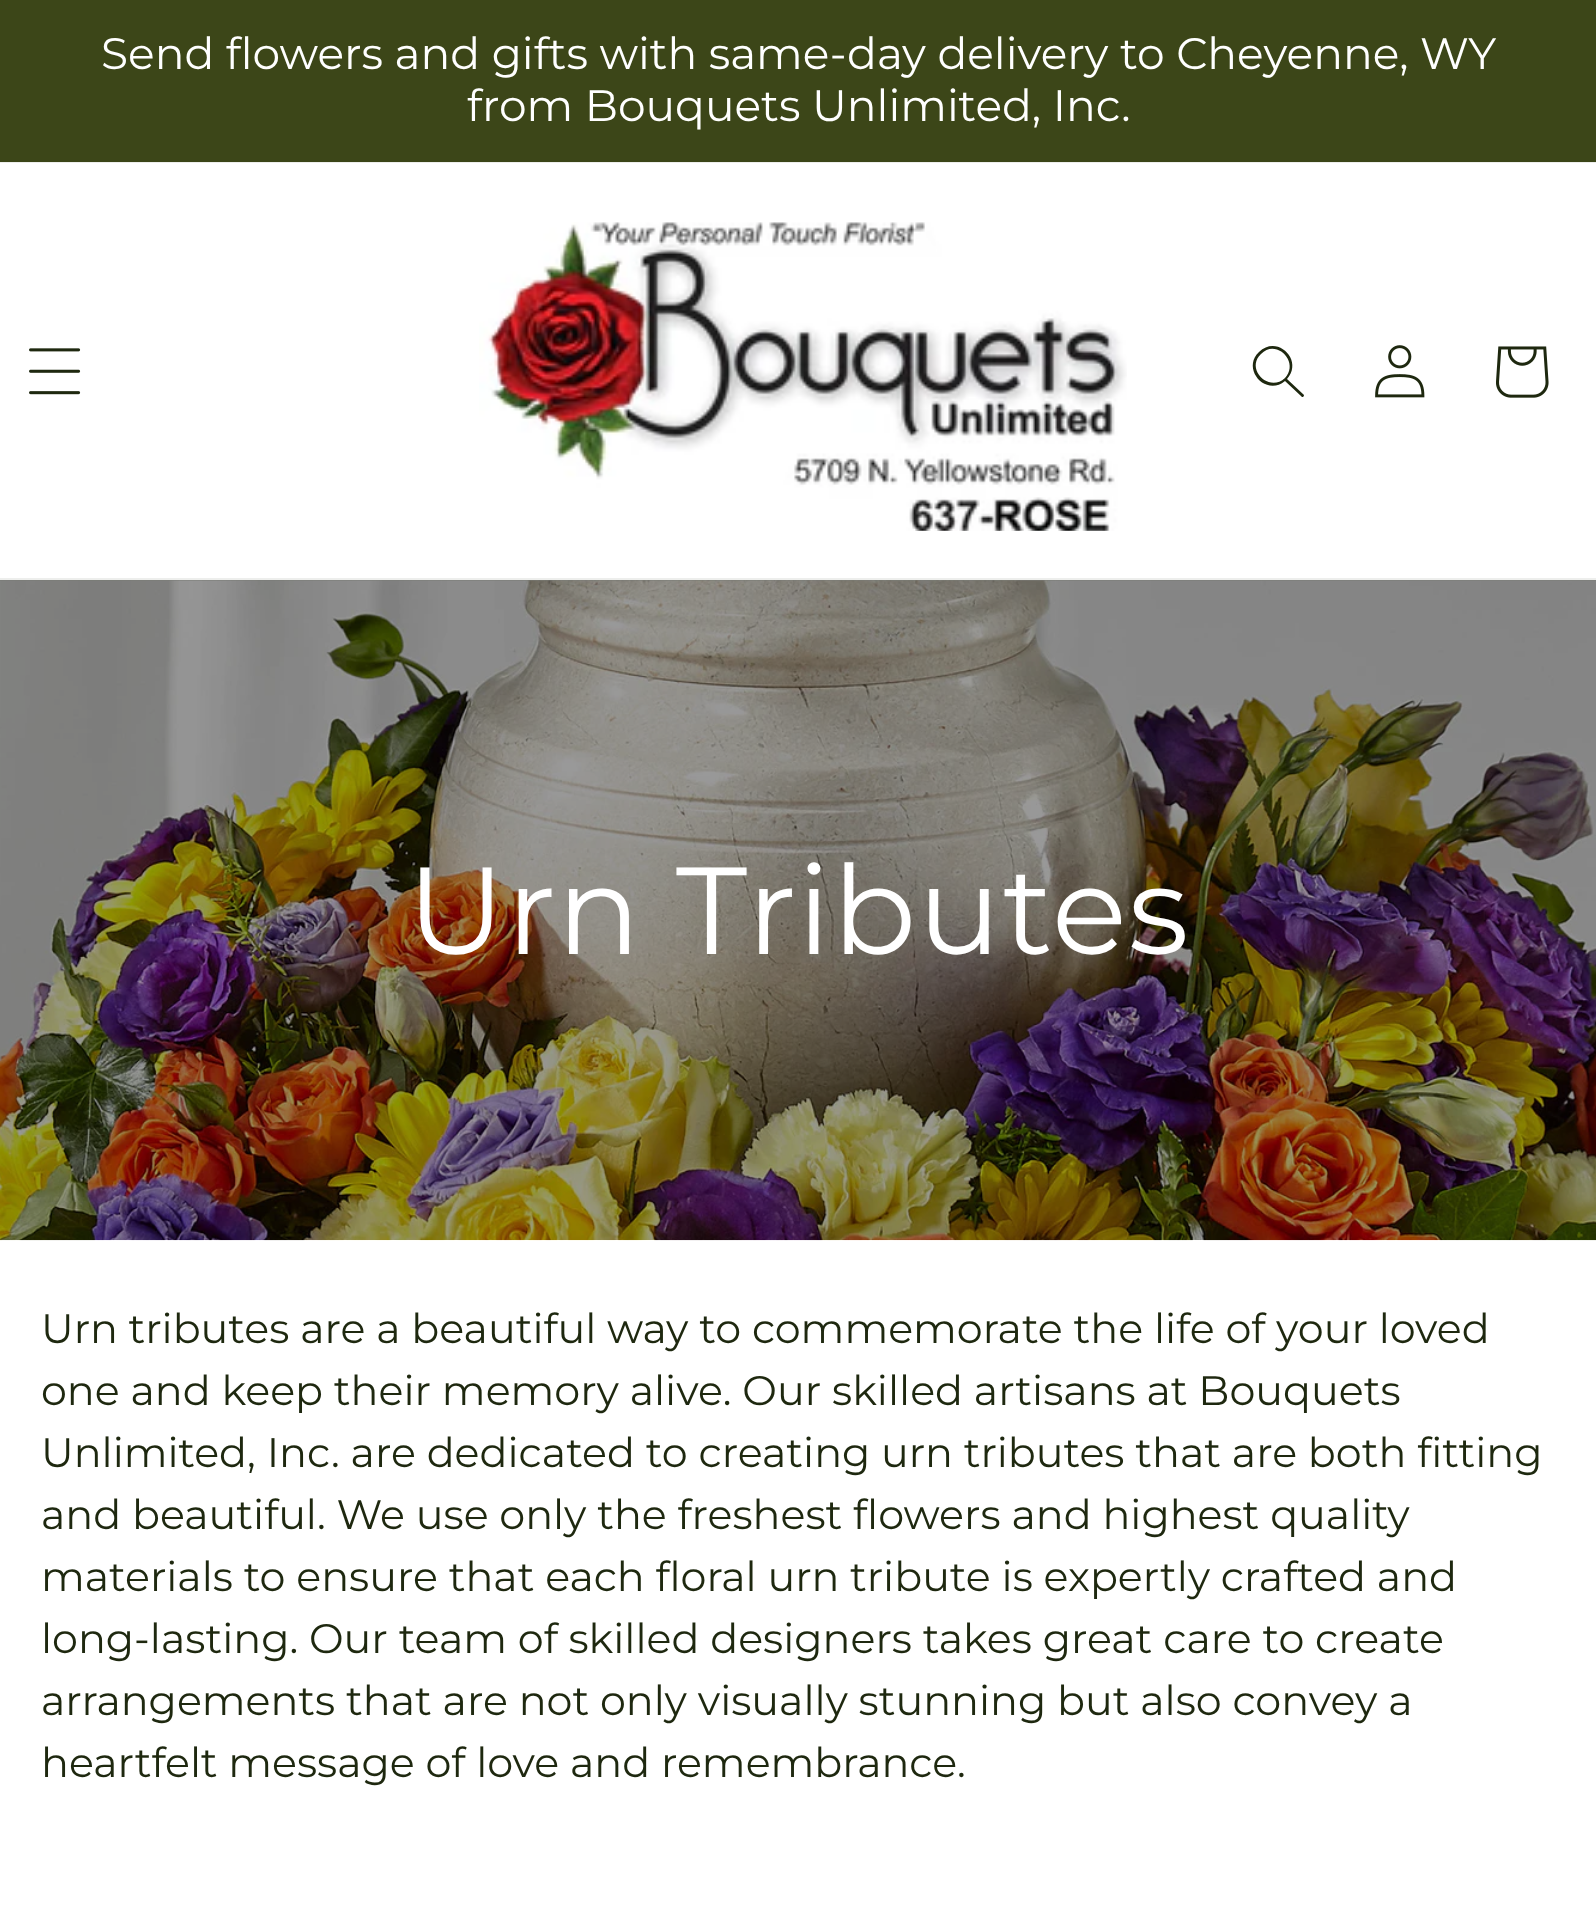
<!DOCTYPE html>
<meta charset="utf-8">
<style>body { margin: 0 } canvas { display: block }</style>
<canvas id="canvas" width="1596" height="1924"></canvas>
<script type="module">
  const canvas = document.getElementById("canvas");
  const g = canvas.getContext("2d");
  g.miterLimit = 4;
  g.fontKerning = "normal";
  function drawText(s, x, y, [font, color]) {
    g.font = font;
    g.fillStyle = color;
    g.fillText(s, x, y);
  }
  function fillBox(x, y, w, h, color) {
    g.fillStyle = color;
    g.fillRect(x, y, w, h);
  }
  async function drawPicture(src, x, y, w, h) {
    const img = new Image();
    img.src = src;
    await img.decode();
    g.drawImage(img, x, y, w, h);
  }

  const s1 = ["44px Montserrat", "#FFFFFF"];
  const s2 = ["123.75px Montserrat", "#FFFFFF"];
  const s3 = ["41.25px Montserrat", "#1E280F"];

  fillBox(0, 0, 1596, 1924, "#FFFFFF");
  fillBox(0, 162, 1596, 1, "#EDEEEC");
  fillBox(0, 0, 1596, 160, "#3C4618");
  fillBox(0, 160, 1596, 2, "#3A4417");
  drawText("Send flowers and gifts with same-day delivery to Cheyenne, WY", 101, 69, s1);
  drawText("from Bouquets Unlimited, Inc.", 467, 121, s1);
  fillBox(0, 580, 1596, 1, "#8C8C8B");
  await drawPicture("pic5.png", 0, 580, 1596, 661);
  fillBox(0, 578, 1596, 3, "rgba(30, 40, 15, 0.08)");
  await drawPicture("pic1.png", 29, 348, 52, 47);
  await drawPicture("pic2.png", 479, 222, 648, 309);
  g.fillStyle = "#1E280F";
  g.beginPath();
  g.moveTo(1285, 378);
  g.bezierCurveTo(1269, 393, 1245, 369, 1261, 354);
  g.bezierCurveTo(1276, 338, 1300, 362, 1285, 378);
  g.moveTo(1285, 381);
  g.bezierCurveTo(1266, 397, 1241, 369, 1259, 352);
  g.bezierCurveTo(1277, 334, 1304, 360, 1287, 379);
  g.lineTo(1304, 395);
  g.bezierCurveTo(1304, 397, 1302, 398, 1301, 396);
  g.closePath();
  g.fill("evenodd");
  await drawPicture("pic3.png", 1375, 345, 50, 53);
  await drawPicture("pic4.png", 1496, 346, 53, 52);
  g.letterSpacing = "1.6px";
  drawText("Urn Tributes", 407, 954, s2);
  g.letterSpacing = "0px";
  drawText("Urn tributes are a beautiful way to commemorate the life of your loved", 41, 1343, s3);
  drawText("one and keep their memory alive. Our skilled artisans at Bouquets", 41, 1405, s3);
  drawText("Unlimited, Inc. are dedicated to creating urn tributes that are both fitting", 41, 1467, s3);
  drawText("and beautiful. We use only the freshest flowers and highest quality", 41, 1529, s3);
  drawText("materials to ensure that each floral urn tribute is expertly crafted and", 41, 1591, s3);
  drawText("long-lasting. Our team of skilled designers takes great care to create", 41, 1653, s3);
  drawText("arrangements that are not only visually stunning but also convey a", 41, 1715, s3);
  drawText("heartfelt message of love and remembrance.", 41, 1777, s3);
</script>
